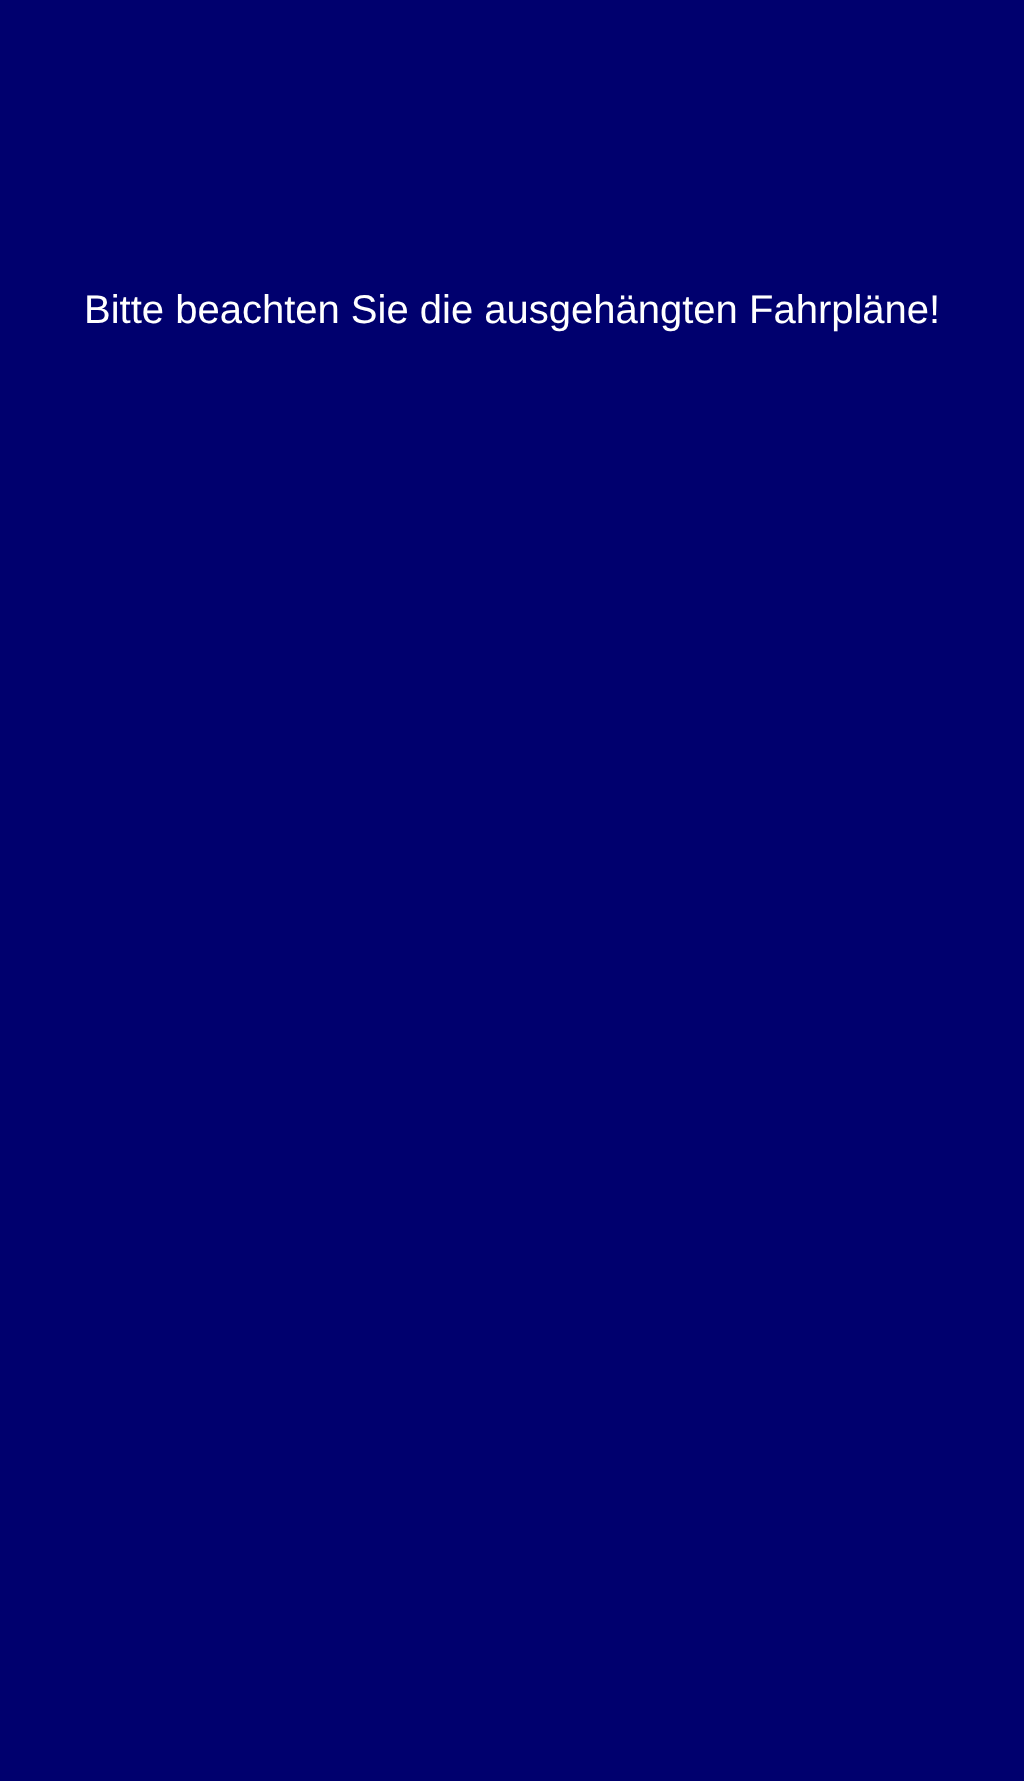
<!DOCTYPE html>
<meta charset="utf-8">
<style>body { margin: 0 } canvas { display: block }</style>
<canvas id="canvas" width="1024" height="1781"></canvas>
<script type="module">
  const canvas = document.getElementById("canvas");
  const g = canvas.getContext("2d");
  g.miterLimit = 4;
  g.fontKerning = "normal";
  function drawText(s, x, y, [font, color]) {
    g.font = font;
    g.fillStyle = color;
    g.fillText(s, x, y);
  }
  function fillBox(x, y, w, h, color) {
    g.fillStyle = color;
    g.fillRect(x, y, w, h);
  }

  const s1 = ["40px Liberation Sans", "#FFFFFF"];

  fillBox(0, 0, 1024, 1781, "#00006E");
  drawText("Bitte beachten Sie die ausgehängten Fahrpläne!", 84, 323, s1);
</script>
